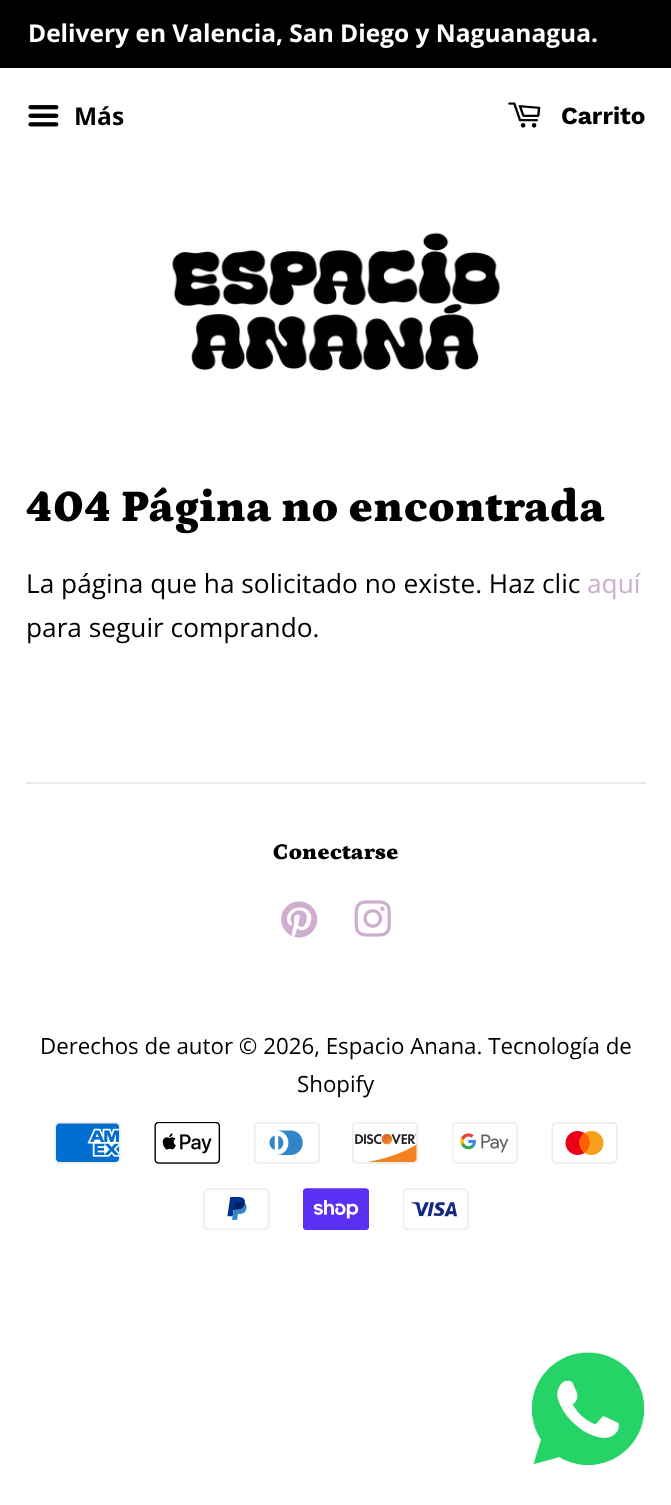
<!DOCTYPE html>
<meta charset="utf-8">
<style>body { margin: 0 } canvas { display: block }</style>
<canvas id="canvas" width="671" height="1505"></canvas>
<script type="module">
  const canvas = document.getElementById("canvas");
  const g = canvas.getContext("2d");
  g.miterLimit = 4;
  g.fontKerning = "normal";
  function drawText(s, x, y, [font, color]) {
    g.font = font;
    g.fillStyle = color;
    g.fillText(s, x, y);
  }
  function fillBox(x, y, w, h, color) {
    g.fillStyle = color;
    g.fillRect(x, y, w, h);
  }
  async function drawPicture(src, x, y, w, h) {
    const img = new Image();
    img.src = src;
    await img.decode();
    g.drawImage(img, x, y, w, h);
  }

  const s1 = ["bold 24.5px Open Sans", "#FFFFFF"];
  const s2 = ["bold 24.5px Open Sans", "#000000"];
  const s3 = ["bold 24.5px Work Sans", "#000000"];
  const s4 = ["900 45.5px Petrona", "#000000"];
  const s5 = ["26.25px Open Sans", "#000000"];
  const s6 = ["26.25px Open Sans", "#CEADCF"];
  const s7 = ["900 22.75px Petrona", "#000000"];
  const s8 = ["22.3px Open Sans", "#000000"];

  fillBox(0, 0, 671, 1505, "#FFFFFF");
  fillBox(0, 0, 671, 68, "#000000");
  drawText("Delivery en Valencia, San Diego y Naguanagua.", 28, 42, s1);
  await drawPicture("pic1.png", 28, 105, 31, 22);
  drawText("Más", 74, 125, s2);
  await drawPicture("pic2.png", 508, 102, 33, 26);
  drawText("Carrito", 561, 124, s3);
  await drawPicture("pic3.png", 172, 232, 329, 139);
  drawText("404 Página no encontrada", 26, 521, s4);
  drawText("La página que ha solicitado no existe. Haz clic", 26, 593, s5);
  drawText("aquí", 587, 593, s6);
  drawText("para seguir comprando.", 26, 637, s5);
  fillBox(26, 782, 620, 2, "#EBEBEB");
  drawText("Conectarse", 273, 859, s7);
  await drawPicture("pic4.png", 281, 901, 37, 37);
  await drawPicture("pic5.png", 354, 900, 37, 37);
  drawText("Derechos de autor © 2026, Espacio Anana. Tecnología de", 40, 1054, s8);
  drawText("Shopify", 297, 1092, s8);
  await drawPicture("pic6.png", 54, 1122, 67, 42);
  await drawPicture("pic7.png", 154, 1122, 67, 42);
  await drawPicture("pic8.png", 254, 1122, 66, 42);
  await drawPicture("pic9.png", 352, 1122, 66, 42);
  await drawPicture("pic10.png", 452, 1122, 66, 42);
  await drawPicture("pic11.png", 551, 1122, 67, 42);
  await drawPicture("pic12.png", 203, 1188, 67, 42);
  await drawPicture("pic13.png", 303, 1188, 66, 42);
  await drawPicture("pic14.png", 403, 1188, 66, 42);
  await drawPicture("pic15.png", 532, 1352, 112, 113);
  await drawPicture("pic16.png", 532, 1352, 112, 113);
</script>
